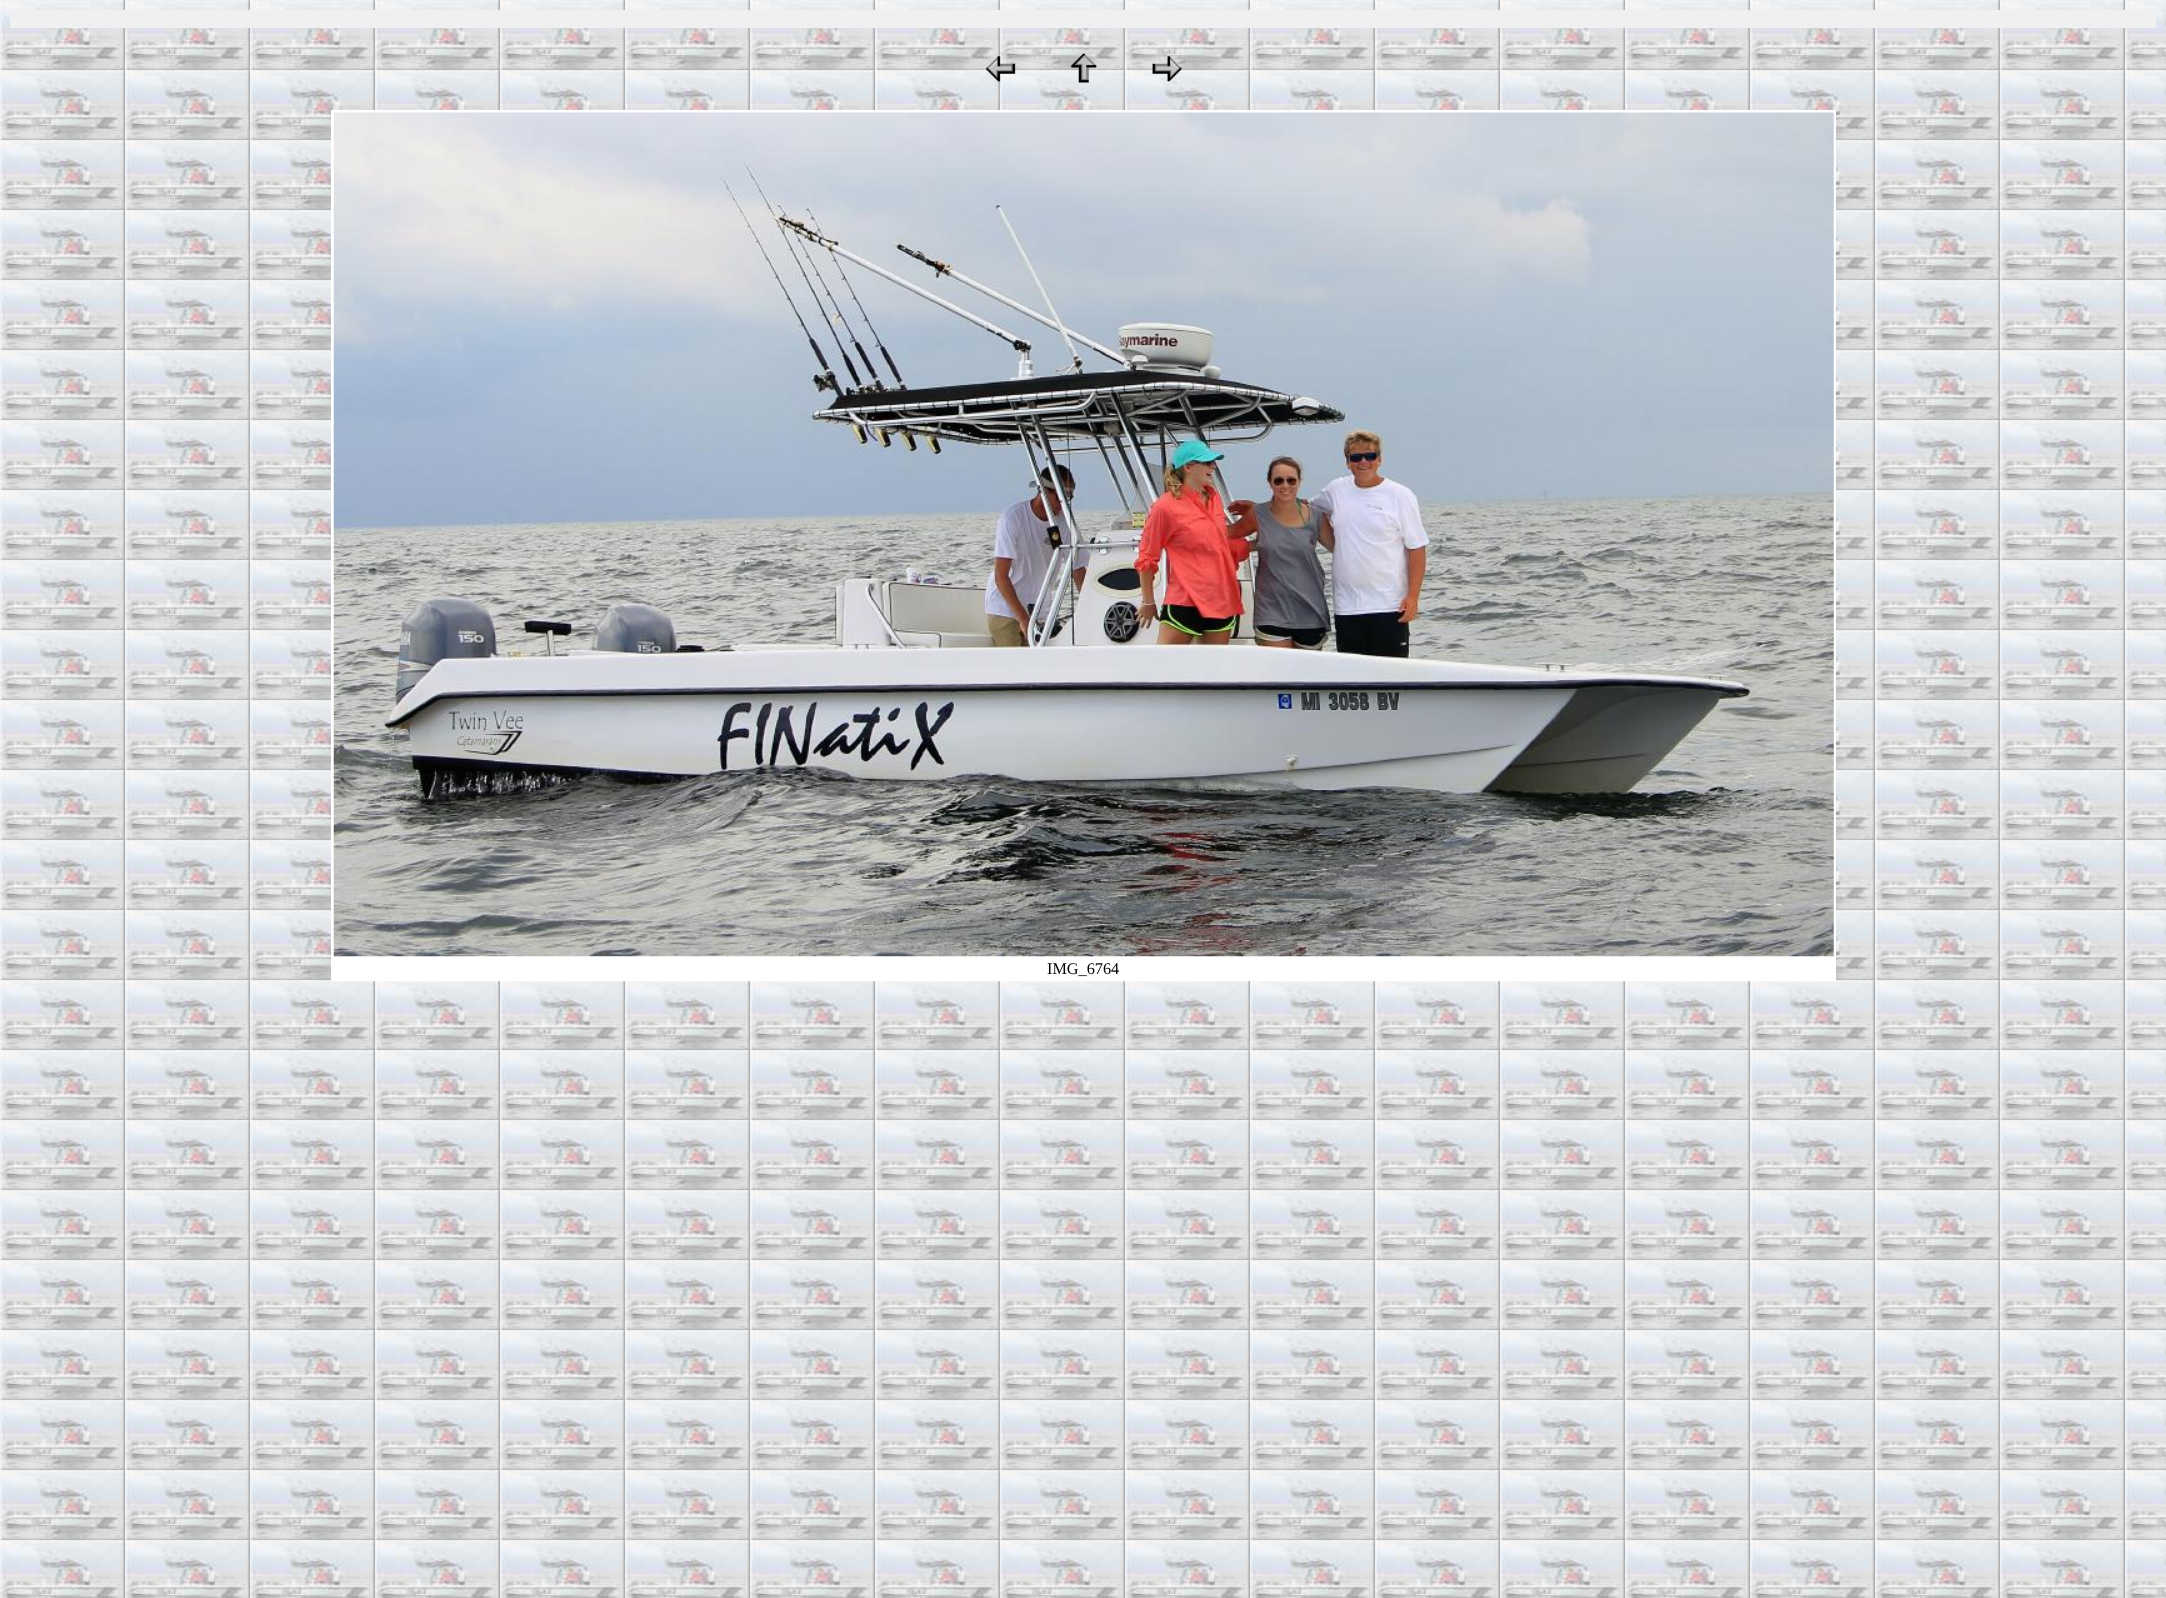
<!DOCTYPE html>
<meta charset="utf-8">
<style>body { margin: 0 } canvas { display: block }</style>
<canvas id="canvas" width="2166" height="1598"></canvas>
<script type="module">
  const canvas = document.getElementById("canvas");
  const g = canvas.getContext("2d");
  g.miterLimit = 4;
  g.fontKerning = "normal";
  function drawText(s, x, y, [font, color]) {
    g.font = font;
    g.fillStyle = color;
    g.fillText(s, x, y);
  }
  function fillBox(x, y, w, h, color) {
    g.fillStyle = color;
    g.fillRect(x, y, w, h);
  }
  async function drawPicture(src, x, y, w, h) {
    const img = new Image();
    img.src = src;
    await img.decode();
    g.drawImage(img, x, y, w, h);
  }

  const s1 = ["16.25px Liberation Serif", "#000000"];

  fillBox(0, 0, 2166, 1598, "#FFFFFF");
  await drawPicture("pic1.png", 0, 0, 2166, 1598);
  fillBox(10, 10, 2146, 18, "#F0F0F0");
  await drawPicture("pic2.png", 986, 56, 30, 26);
  await drawPicture("pic3.png", 1071, 53, 26, 30);
  await drawPicture("pic4.png", 1152, 56, 30, 26);
  fillBox(331, 110, 1505, 871, "#FFFFFF");
  await drawPicture("pic5.png", 333, 112, 1501, 845);
  drawText("IMG_6764", 1047, 974, s1);
</script>
